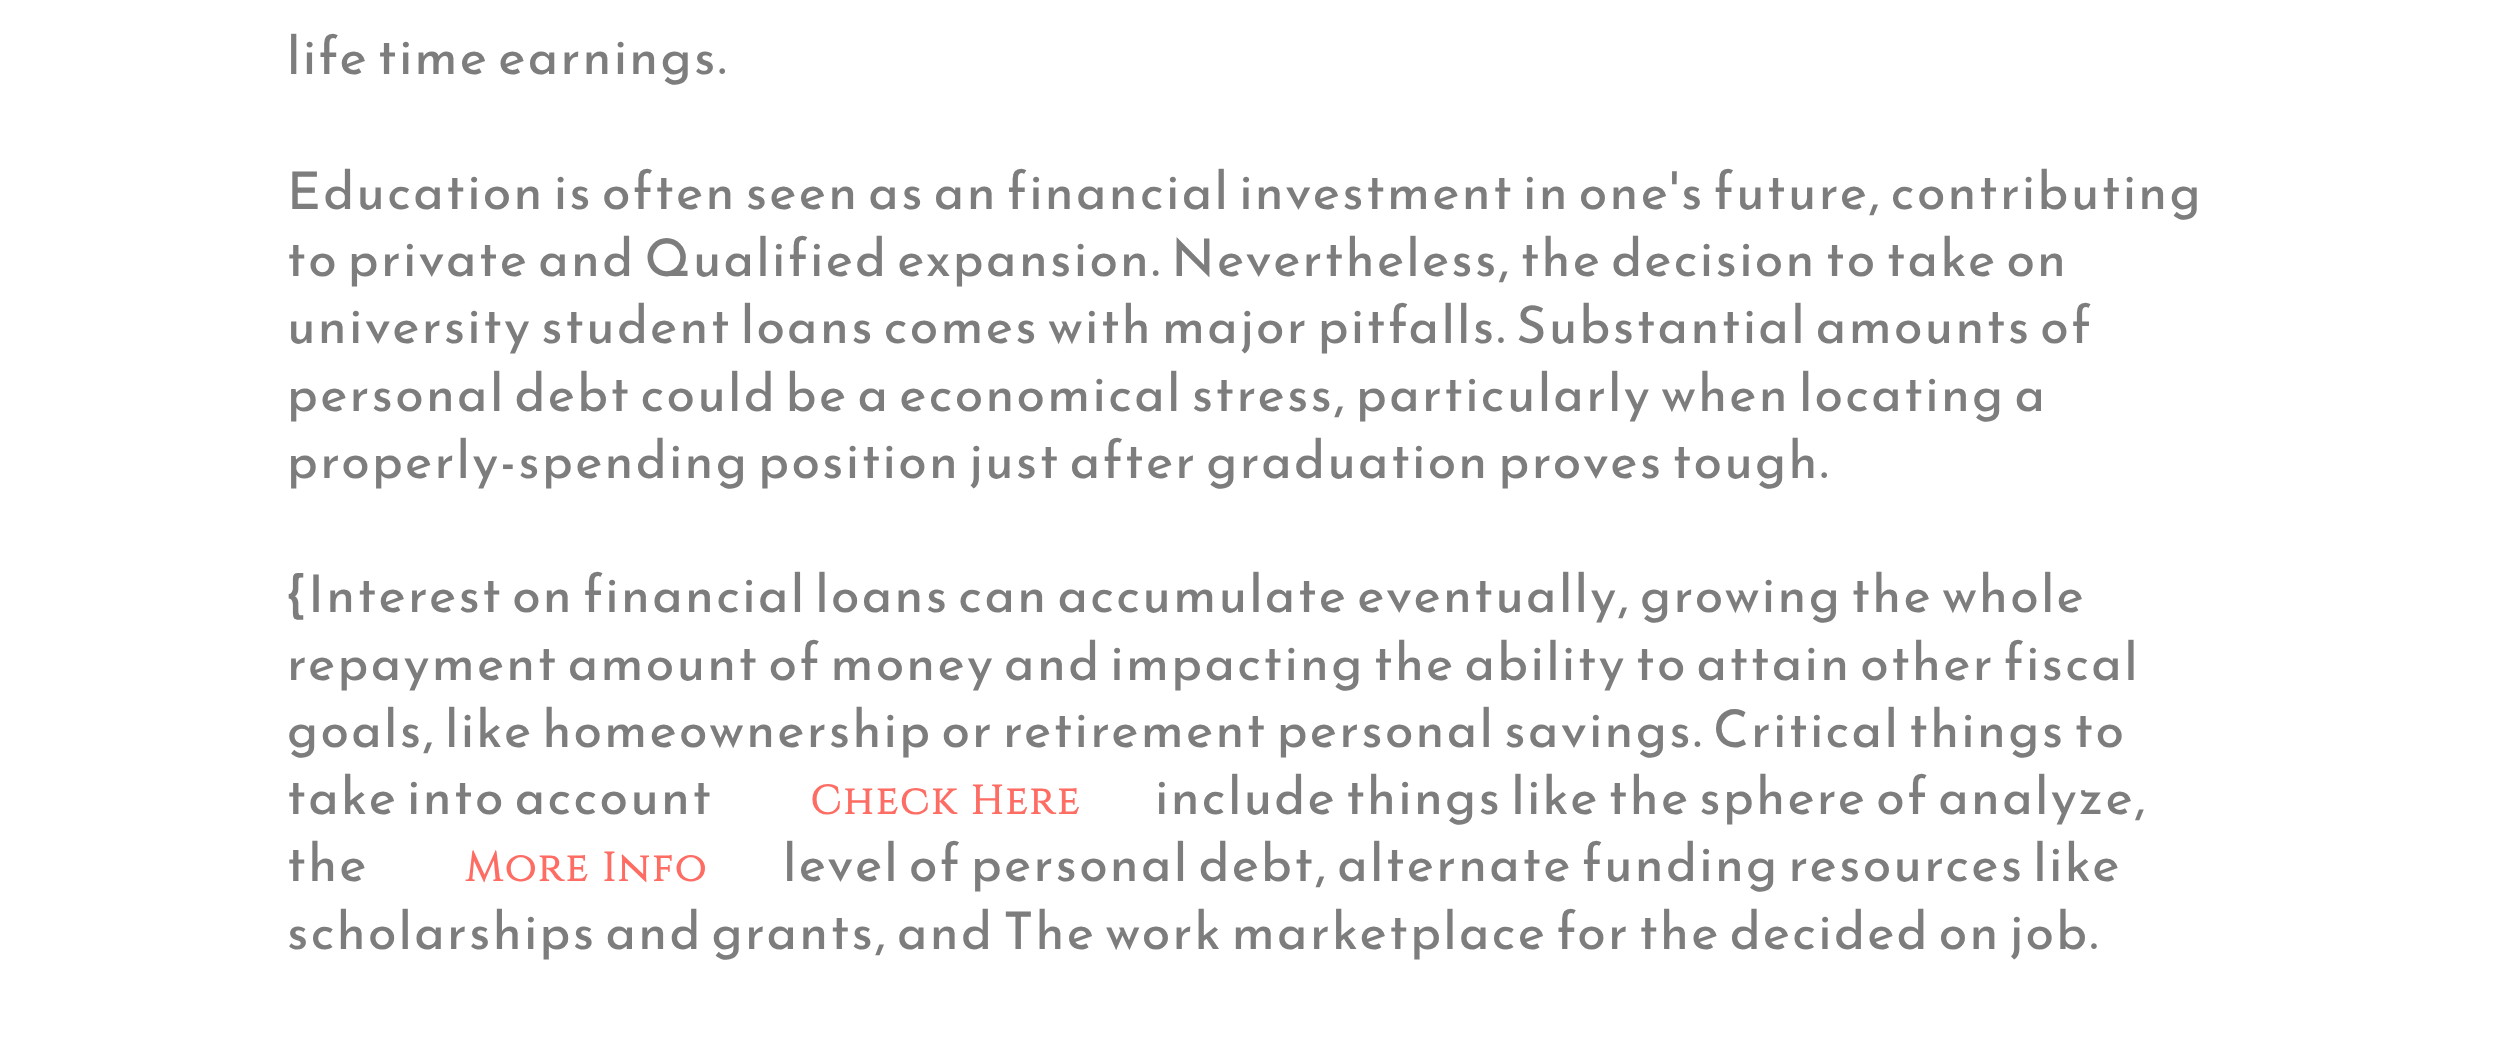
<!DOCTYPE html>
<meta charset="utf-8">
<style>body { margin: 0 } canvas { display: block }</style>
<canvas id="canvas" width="2507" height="1057"></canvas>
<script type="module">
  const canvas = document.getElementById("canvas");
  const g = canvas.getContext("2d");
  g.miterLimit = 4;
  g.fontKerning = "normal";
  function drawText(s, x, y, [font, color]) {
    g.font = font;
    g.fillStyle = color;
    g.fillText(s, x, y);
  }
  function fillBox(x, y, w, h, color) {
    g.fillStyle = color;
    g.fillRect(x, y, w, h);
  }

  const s1 = ["51.75px Reem Kufi", "#7D7D7D"];
  const s2 = ["bold 40.5px Cinzel", "#FD6D64"];

  fillBox(0, 0, 2507, 1057, "#FFFFFF");
  g.letterSpacing = "2.25px";
  drawText("life time earnings.", 287, 74, s1);
  drawText("Education is often seen as an financial investment in one's future, contributing", 287, 209, s1);
  drawText("to private and Qualified expansion. Nevertheless, the decision to take on", 287, 276, s1);
  drawText("university student loans comes with major pitfalls. Substantial amounts of", 287, 343, s1);
  drawText("personal debt could be a economical stress, particularly when locating a", 287, 411, s1);
  drawText("properly-spending position just after graduation proves tough.", 287, 478, s1);
  drawText("{Interest on financial loans can accumulate eventually, growing the whole", 287, 612, s1);
  drawText("repayment amount of money and impacting the ability to attain other fiscal", 287, 680, s1);
  drawText("goals, like homeownership or retirement personal savings. Critical things to", 287, 747, s1);
  drawText("take into account", 287, 814, s1);
  drawText("Check Here", 810, 814, s2);
  drawText("include things like the sphere of analyze,", 1155, 814, s1);
  drawText("the", 287, 881, s1);
  drawText("More Info", 465, 881, s2);
  drawText("level of personal debt, alternate funding resources like", 783, 881, s1);
  drawText("scholarships and grants, and The work marketplace for the decided on job.", 287, 949, s1);
</script>
